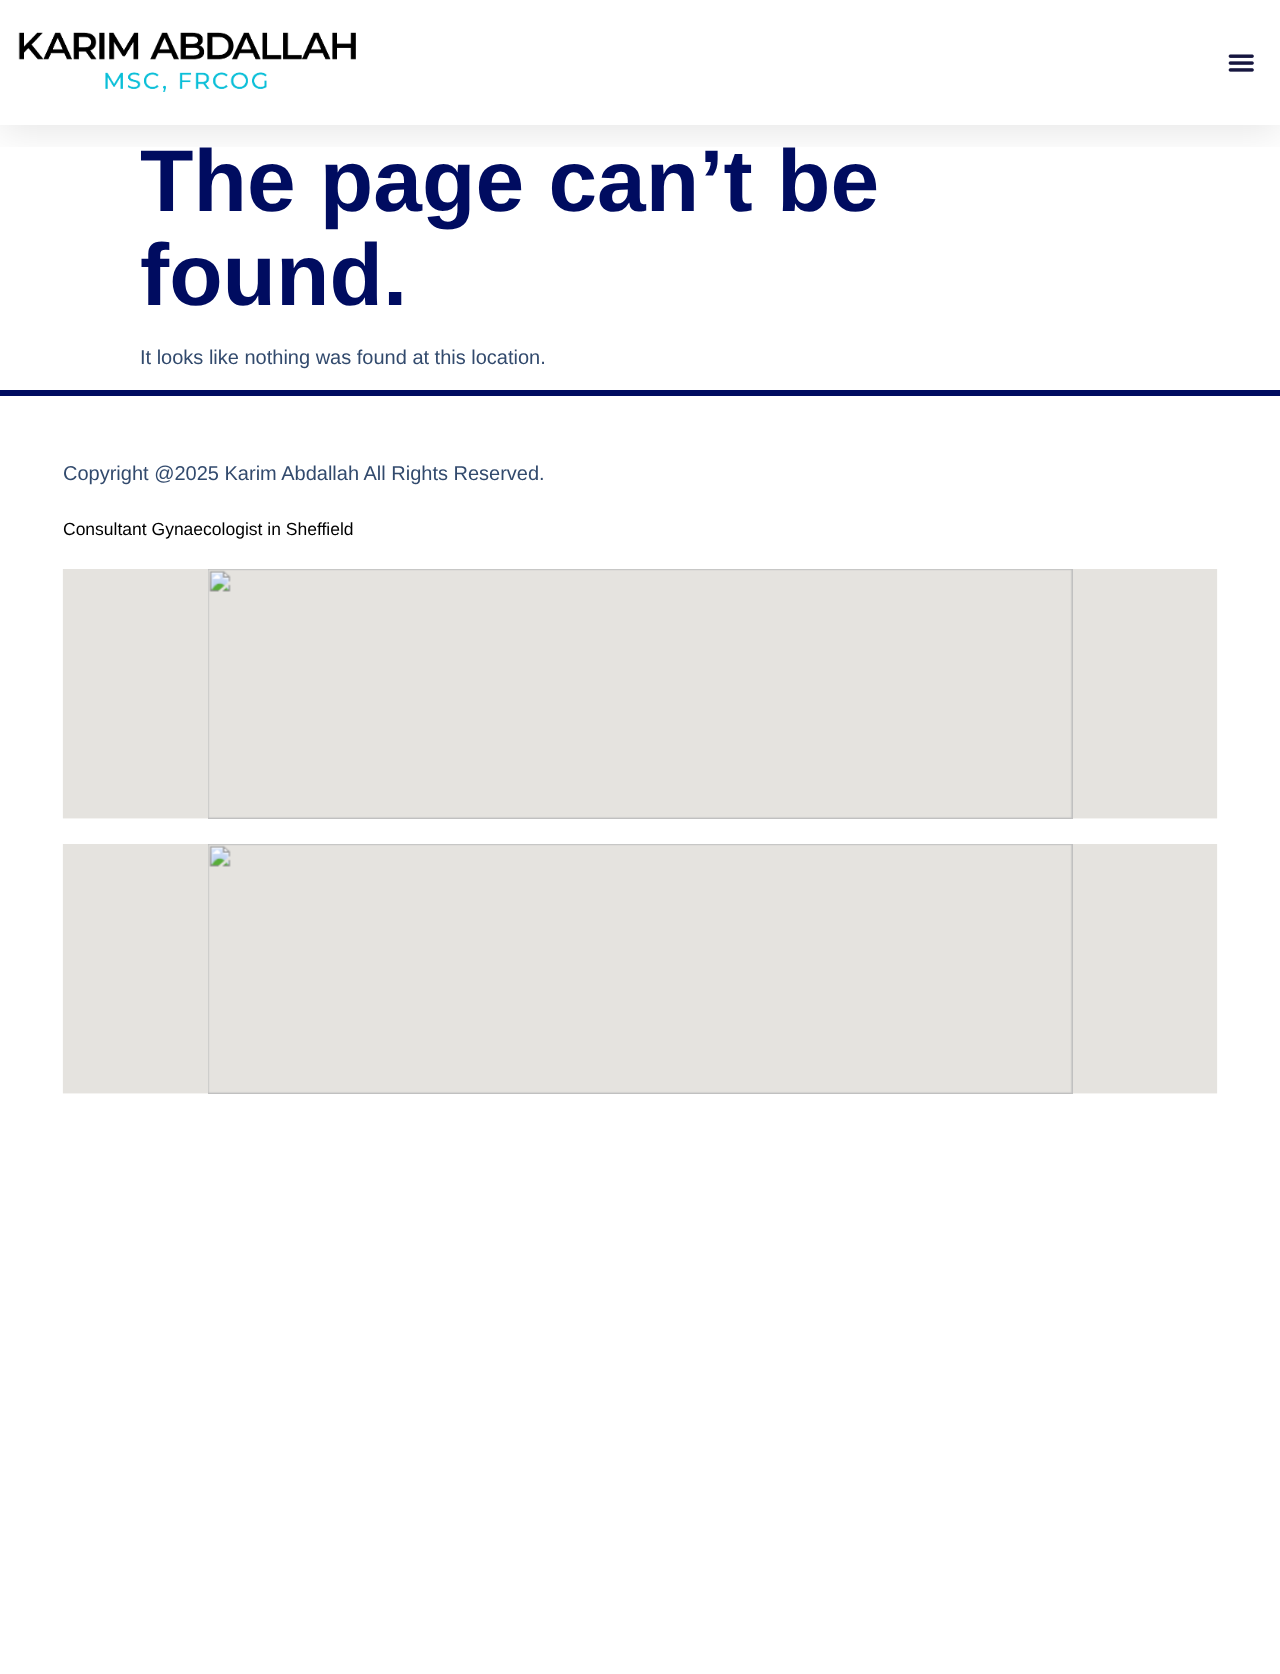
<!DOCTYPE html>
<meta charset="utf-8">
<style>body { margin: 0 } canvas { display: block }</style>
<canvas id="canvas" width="1280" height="1674"></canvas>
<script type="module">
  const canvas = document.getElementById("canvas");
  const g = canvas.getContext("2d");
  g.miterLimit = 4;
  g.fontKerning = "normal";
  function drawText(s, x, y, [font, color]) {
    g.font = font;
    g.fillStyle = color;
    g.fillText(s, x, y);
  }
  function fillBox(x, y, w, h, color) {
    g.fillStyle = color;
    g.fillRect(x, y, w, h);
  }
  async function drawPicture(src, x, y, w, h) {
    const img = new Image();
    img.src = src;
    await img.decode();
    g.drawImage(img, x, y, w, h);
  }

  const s1 = ["bold 87.5px Liberation Sans", "#000C60"];
  const s2 = ["20px Liberation Sans", "#324A6D"];
  const s3 = ["17.5px Liberation Sans", "#000000"];

  fillBox(0, 0, 1280, 1674, "#FFFFFF");
  g.save();
  g.beginPath();
  g.rect(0, 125, 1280, 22);
  g.clip();
  g.fillStyle = "rgba(0, 0, 0, 0.1)";
  g.filter = "blur(19px)";
  g.beginPath();
  g.rect(0, 6, 1280, 125);
  g.fill();
  g.filter = "none";
  g.restore();
  await drawPicture("pic1.png", 18, 32, 338, 60);
  await drawPicture("pic2.png", 1228, 54, 26, 18);
  drawText("The page can’t be", 140, 211, s1);
  drawText("found.", 140, 305, s1);
  drawText("It looks like nothing was found at this location.", 140, 364, s2);
  fillBox(0, 390, 1280, 6, "#000C60");
  drawText("Copyright @2025 Karim Abdallah All Rights Reserved.", 63, 480, s2);
  drawText("Consultant Gynaecologist in Sheffield", 63, 535, s3);
  await drawPicture("pic3.png", 62, 569, 1156, 250);
  await drawPicture("pic3.png", 62, 844, 1156, 250);
</script>
